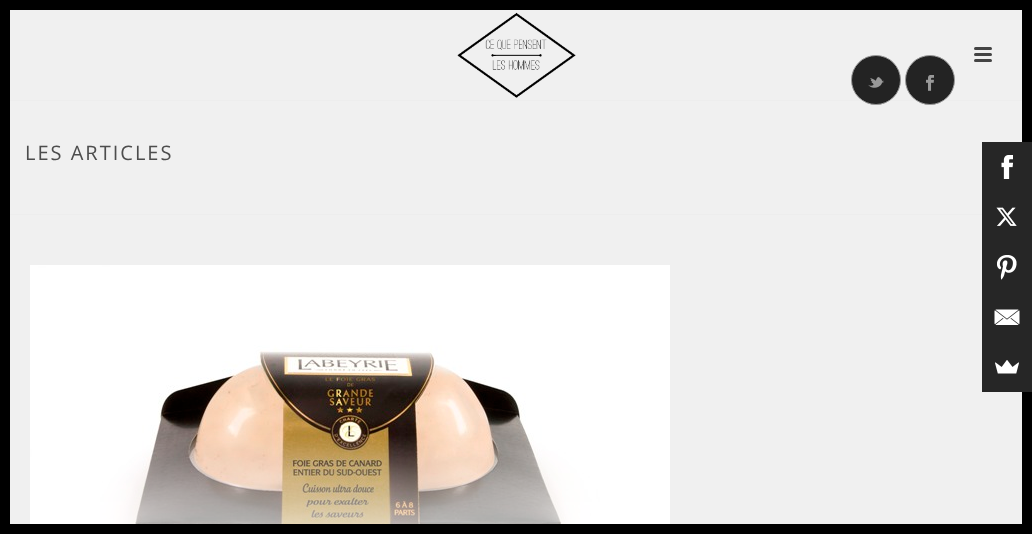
<!DOCTYPE html>
<meta charset="utf-8">
<style>body { margin: 0 } canvas { display: block }</style>
<canvas id="canvas" width="1032" height="534"></canvas>
<script type="module">
  const canvas = document.getElementById("canvas");
  const g = canvas.getContext("2d");
  g.miterLimit = 4;
  g.fontKerning = "normal";
  function drawText(s, x, y, [font, color]) {
    g.font = font;
    g.fillStyle = color;
    g.fillText(s, x, y);
  }
  function fillBox(x, y, w, h, color) {
    g.fillStyle = color;
    g.fillRect(x, y, w, h);
  }
  function fillRounded(x, y, w, h, r, color) {
    g.fillStyle = color;
    g.beginPath();
    g.roundRect(x, y, w, h, r);
    g.fill();
  }
  async function drawPicture(src, x, y, w, h) {
    const img = new Image();
    img.src = src;
    await img.decode();
    g.drawImage(img, x, y, w, h);
  }

  const s1 = ["20px Open Sans", "#4D4D4D"];

  fillBox(0, 0, 1032, 534, "#F0F0F0");
  fillBox(0, 0, 10, 524, "#000000");
  fillBox(10, 0, 1012, 10, "#000000");
  fillBox(1022, 0, 10, 524, "#000000");
  fillBox(10, 214, 972, 1, "#EDEDED");
  fillBox(10, 100, 1012, 1, "#EDEDED");
  await drawPicture("pic1.png", 457, 12, 119, 86);
  fillRounded(974, 47, 18, 3, 1.5, "#444444");
  fillRounded(974, 53, 18, 3, 1.5, "#444444");
  fillRounded(974, 59, 18, 3, 1.5, "#444444");
  g.fillStyle = "#232323";
  g.beginPath();
  g.arc(876, 80, 24.5, 0, Math.PI * 2);
  g.fill();
  g.strokeStyle = "#999999";
  g.stroke();
  await drawPicture("pic2.png", 868, 76, 16, 12);
  g.beginPath();
  g.arc(930, 80, 24.5, 0, Math.PI * 2);
  g.fill();
  g.stroke();
  await drawPicture("pic3.png", 926, 75, 8, 16);
  g.letterSpacing = "2px";
  drawText("LES ARTICLES", 25, 160, s1);
  await drawPicture("pic4.png", 30, 265, 640, 259);
  fillBox(982, 142, 50, 250, "#262626");
  await drawPicture("pic5.png", 1001, 155, 12, 24);
  await drawPicture("pic6.png", 996, 207, 21, 19);
  await drawPicture("pic7.png", 997, 255, 20, 25);
  await drawPicture("pic8.png", 994, 309, 26, 16);
  await drawPicture("pic9.png", 995, 360, 24, 14);
  fillBox(0, 524, 1032, 10, "#000000");
</script>
